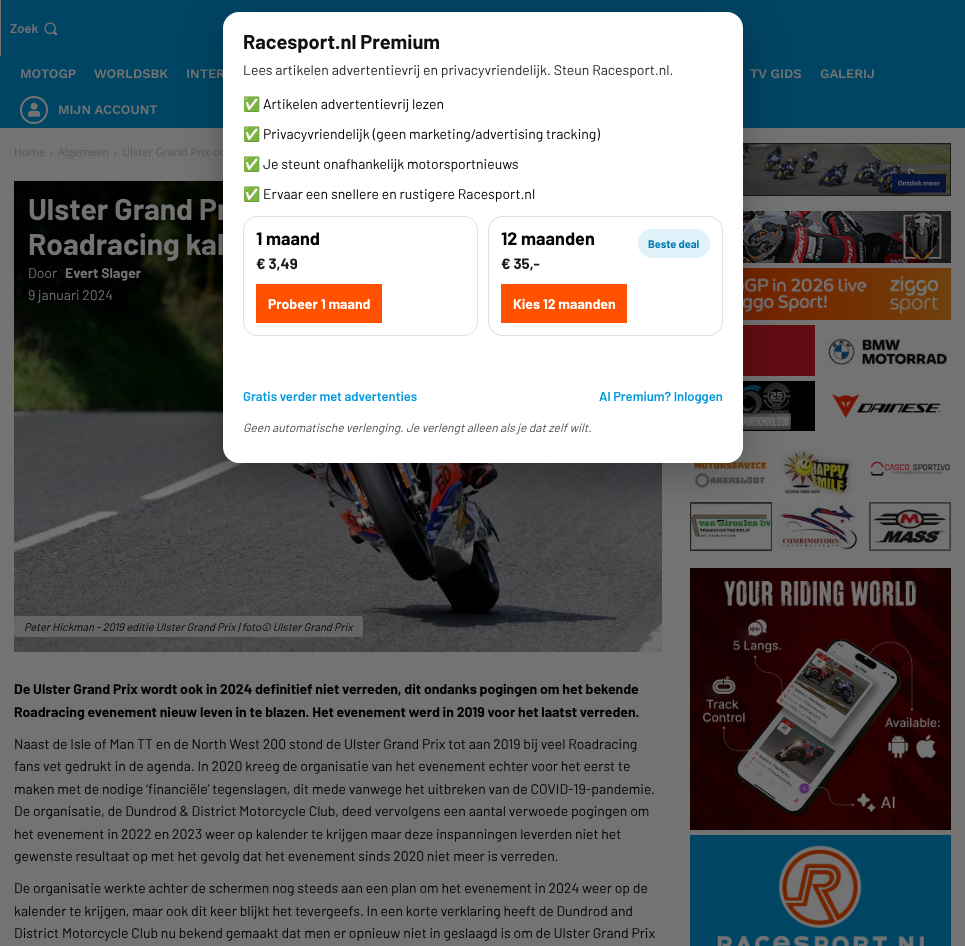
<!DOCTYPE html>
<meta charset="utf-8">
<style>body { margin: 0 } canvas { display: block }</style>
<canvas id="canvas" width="965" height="946"></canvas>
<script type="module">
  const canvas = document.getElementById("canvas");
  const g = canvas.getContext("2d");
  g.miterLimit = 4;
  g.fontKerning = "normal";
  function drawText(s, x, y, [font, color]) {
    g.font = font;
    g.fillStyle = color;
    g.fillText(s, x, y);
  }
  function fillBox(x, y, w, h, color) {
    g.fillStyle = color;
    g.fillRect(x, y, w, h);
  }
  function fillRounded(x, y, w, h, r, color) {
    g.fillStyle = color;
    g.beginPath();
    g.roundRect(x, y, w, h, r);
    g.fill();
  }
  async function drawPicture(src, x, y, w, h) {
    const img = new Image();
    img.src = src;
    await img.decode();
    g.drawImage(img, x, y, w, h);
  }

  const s1 = ["600 13px Barlow", "#737373"];
  const s2 = ["600 13px Work Sans", "#737373"];
  const s3 = ["11px Open Sans", "#585858"];
  const s4 = ["bold 30px Barlow", "#737373"];
  const s5 = ["14px Barlow", "#737373"];
  const s6 = ["bold 14px Barlow", "#737373"];
  const s7 = ["italic 11px Barlow", "#000000"];
  const s8 = ["bold 14px Barlow", "#000000"];
  const s9 = ["14px Barlow", "#000000"];
  const s10 = ["bold 20px Barlow", "#111111"];
  const s11 = ["14px Barlow", "#262626"];
  const s12 = ["14px Noto Color Emoji", "#000000"];
  const s13 = ["bold 18px Barlow", "#000000"];
  const s14 = ["bold 15px Barlow", "#1A1A1A"];
  const s15 = ["bold 14px Barlow", "#FFFFFF"];
  const s16 = ["bold 11px Barlow", "#007BB3"];
  const s17 = ["600 13px Barlow", "#009ADE"];
  const s18 = ["italic 12px Barlow", "#4D4D4D"];

  fillBox(0, 0, 965, 946, "#737373");
  fillBox(1, 0, 964, 56, "#004564");
  drawText("Zoek", 10, 33, s1);
  await drawPicture("pic1.png", 44, 22, 14, 14);
  fillBox(0, 56, 965, 72, "#004564");
  drawText("MOTOGP", 20, 78, s2);
  drawText("WORLDSBK", 94, 78, s2);
  drawText("INTER", 186, 78, s2);
  drawText("TV GIDS", 750, 78, s2);
  drawText("GALERIJ", 820, 78, s2);
  g.beginPath();
  g.arc(34, 110, 13, 0, Math.PI * 2);
  g.strokeStyle = "#737373";
  g.lineWidth = 2;
  g.stroke();
  await drawPicture("pic2.png", 28, 102, 13, 15);
  drawText("MIJN ACCOUNT", 58, 114, s2);
  drawText("Home", 14, 156, s3);
  await drawPicture("pic3.png", 50, 151, 3, 5);
  drawText("Algemeen", 58, 156, s3);
  await drawPicture("pic3.png", 114, 151, 3, 5);
  drawText("Ulster Grand Prix oo", 122, 156, s3);
  await drawPicture("pic4.png", 14, 181, 648, 471);
  drawText("Ulster Grand Pr", 28, 220, s4);
  drawText("Roadracing kal", 28, 255, s4);
  drawText("Door", 28, 278, s5);
  drawText("Evert Slager", 65, 278, s6);
  drawText("9 januari 2024", 28, 300, s5);
  fillRounded(14, 616, 349, 21, 2, "rgba(115, 115, 115, 0.7)");
  drawText("Peter Hickman - 2019 editie Ulster Grand Prix | foto© Ulster Grand Prix", 24, 631, s7);
  drawText("De Ulster Grand Prix wordt ook in 2024 definitief niet verreden, dit ondanks pogingen om het bekende", 14, 694, s8);
  drawText("Roadracing evenement nieuw leven in te blazen. Het evenement werd in 2019 voor het laatst verreden.", 14, 717, s8);
  drawText("Naast de Isle of Man TT en de North West 200 stond de Ulster Grand Prix tot aan 2019 bij veel Roadracing", 14, 749, s9);
  drawText("fans vet gedrukt in de agenda. In 2020 kreeg de organisatie van het evenement echter voor het eerst te", 14, 771, s9);
  drawText("maken met de nodige ‘financiële’ tegenslagen, dit mede vanwege het uitbreken van de COVID-19-pandemie.", 14, 794, s9);
  drawText("De organisatie, de Dundrod & District Motorcycle Club, deed vervolgens een aantal verwoede pogingen om", 14, 816, s9);
  drawText("het evenement in 2022 en 2023 weer op kalender te krijgen maar deze inspanningen leverden niet het", 14, 839, s9);
  drawText("gewenste resultaat op met het gevolg dat het evenement sinds 2020 niet meer is verreden.", 14, 861, s9);
  drawText("De organisatie werkte achter de schermen nog steeds aan een plan om het evenement in 2024 weer op de", 14, 893, s9);
  drawText("kalender te krijgen, maar ook dit keer blijkt het tevergeefs. In een korte verklaring heeft de Dundrod and", 14, 916, s9);
  drawText("District Motorcycle Club nu bekend gemaakt dat men er opnieuw niet in geslaagd is om de Ulster Grand Prix", 14, 938, s9);
  await drawPicture("pic5.png", 743, 143, 208, 53);
  await drawPicture("pic6.png", 743, 211, 208, 52);
  await drawPicture("pic7.png", 743, 268, 208, 52);
  fillBox(743, 325, 72, 51, "#600D13");
  await drawPicture("pic8.png", 825, 338, 123, 28);
  await drawPicture("pic9.png", 743, 381, 72, 50);
  await drawPicture("pic10.png", 831, 394, 110, 24);
  await drawPicture("pic11.png", 694, 462, 73, 26);
  await drawPicture("pic12.png", 777, 448, 79, 49);
  await drawPicture("pic13.png", 869, 461, 82, 29);
  await drawPicture("pic14.png", 690, 502, 82, 49);
  await drawPicture("pic15.png", 777, 502, 82, 49);
  await drawPicture("pic16.png", 869, 502, 82, 49);
  await drawPicture("pic17.png", 690, 568, 261, 262);
  await drawPicture("pic18.png", 690, 835, 261, 111);
  g.fillStyle = "rgba(0, 0, 0, 0.25)";
  g.filter = "blur(20px)";
  g.beginPath();
  g.roundRect(223, 24, 520, 451, 16);
  g.fill();
  g.filter = "none";
  fillRounded(223, 12, 520, 451, 16, "#FFFFFF");
  drawText("Racesport.nl Premium", 243, 49, s10);
  drawText("Lees artikelen advertentievrij en privacyvriendelijk. Steun Racesport.nl.", 243, 75, s11);
  drawText("✅", 243, 109, s12);
  drawText("Artikelen advertentievrij lezen", 263, 109, s9);
  drawText("✅", 243, 139, s12);
  drawText("Privacyvriendelijk (geen marketing/advertising tracking)", 263, 139, s9);
  drawText("✅", 243, 169, s12);
  drawText("Je steunt onafhankelijk motorsportnieuws", 263, 169, s9);
  drawText("✅", 243, 199, s12);
  drawText("Ervaar een snellere en rustigere Racesport.nl", 263, 199, s9);
  g.beginPath();
  g.roundRect(243.5, 216.5, 234, 119, 13.5);
  g.strokeStyle = "#E0E0E0";
  g.lineWidth = 1;
  g.stroke();
  drawText("1 maand", 256, 245, s13);
  drawText("€ 3,49", 256, 269, s14);
  fillBox(256, 284, 126, 39, "#FF5100");
  drawText("Probeer 1 maand", 268, 309, s15);
  g.beginPath();
  g.roundRect(488.5, 216.5, 234, 119, 13.5);
  g.stroke();
  drawText("12 maanden", 501, 245, s13);
  drawText("€ 35,-", 501, 269, s14);
  fillRounded(638, 229, 72, 29, 14.5, "#E0F3FB");
  drawText("Beste deal", 648, 248, s16);
  fillBox(501, 284, 126, 39, "#FF5100");
  drawText("Kies 12 maanden", 513, 309, s15);
  drawText("Gratis verder met advertenties", 243, 401, s17);
  drawText("Al Premium? Inloggen", 599, 401, s17);
  drawText("Geen automatische verlenging. Je verlengt alleen als je dat zelf wilt.", 243, 432, s18);
</script>
